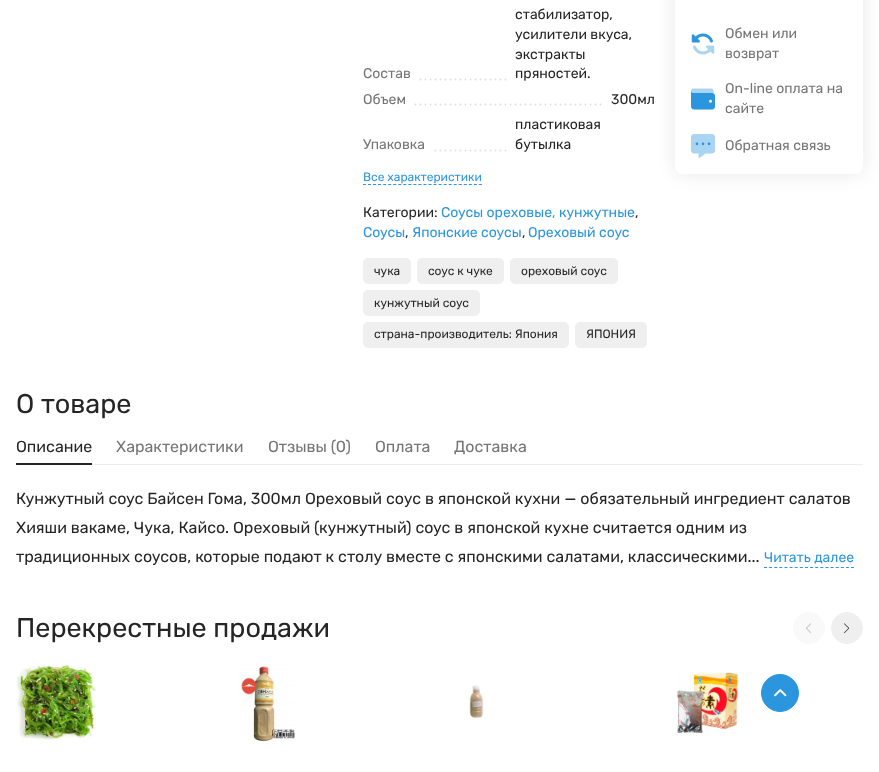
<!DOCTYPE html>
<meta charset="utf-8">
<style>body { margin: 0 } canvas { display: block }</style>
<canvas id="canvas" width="879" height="772"></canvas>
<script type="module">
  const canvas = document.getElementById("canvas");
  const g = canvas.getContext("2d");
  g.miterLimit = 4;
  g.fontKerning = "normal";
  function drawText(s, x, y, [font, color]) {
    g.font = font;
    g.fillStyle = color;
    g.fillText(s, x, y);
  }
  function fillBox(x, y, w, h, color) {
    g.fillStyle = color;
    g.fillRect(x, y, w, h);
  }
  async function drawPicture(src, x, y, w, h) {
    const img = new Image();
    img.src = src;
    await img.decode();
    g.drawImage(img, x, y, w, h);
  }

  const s1 = ["14px Rubik", "#757575"];
  const s2 = ["14px Rubik", "#252525"];
  const s3 = ["12px Rubik", "#2B95DE"];
  const s4 = ["14px Rubik", "#2B95DE"];
  const s5 = ["12px Rubik", "#252525"];
  const s6 = ["27px Rubik", "#252525"];
  const s7 = ["16px Rubik", "#252525"];
  const s8 = ["16px Rubik", "#757575"];

  fillBox(0, 0, 879, 772, "#FFFFFF");
  g.beginPath();
  g.moveTo(365.5, 79.5);
  g.lineTo(505.7, 79.5);
  g.strokeStyle = "#DEDEDE";
  g.lineWidth = 1.8;
  g.lineCap = "round";
  g.setLineDash([0, 5]);
  g.stroke();
  fillBox(364, 78, 53, 3, "#FFFFFF");
  drawText("Состав", 363, 78, s1);
  drawText("стабилизатор,", 515, 19, s2);
  drawText("усилители вкуса,", 515, 39, s2);
  drawText("экстракты", 515, 59, s2);
  drawText("пряностей.", 515, 78, s2);
  g.beginPath();
  g.moveTo(365.5, 104.5);
  g.lineTo(600.7, 104.5);
  g.stroke();
  fillBox(364, 103, 48, 3, "#FFFFFF");
  drawText("Объем", 363, 104, s1);
  drawText("300мл", 611, 104, s2);
  g.beginPath();
  g.moveTo(365.5, 150.5);
  g.lineTo(505.7, 150.5);
  g.stroke();
  fillBox(364, 149, 67, 3, "#FFFFFF");
  drawText("Упаковка", 363, 149, s1);
  drawText("пластиковая", 515, 129, s2);
  drawText("бутылка", 515, 149, s2);
  drawText("Все характеристики", 363, 181, s3);
  g.beginPath();
  g.moveTo(363, 184.5);
  g.lineTo(482, 184.5);
  g.strokeStyle = "#2B95DE";
  g.lineWidth = 1;
  g.lineCap = "butt";
  g.setLineDash([3, 2.04]);
  g.stroke();
  drawText("Категории:", 363, 217, s2);
  drawText("Соусы ореховые, кунжутные", 441, 217, s4);
  drawText(",", 635, 217, s2);
  drawText("Соусы", 363, 237, s4);
  drawText(",", 405, 237, s2);
  drawText("Японские соусы", 412, 237, s4);
  drawText(",", 522, 237, s2);
  drawText("Ореховый соус", 528, 237, s4);
  g.fillStyle = "#EFEFEF";
  g.beginPath();
  g.roundRect(363.5, 258.5, 47, 25, 4.5);
  g.fill();
  g.strokeStyle = "#EFEFEF";
  g.setLineDash([]);
  g.stroke();
  drawText("чука", 374, 275, s5);
  g.fillStyle = "#EFEFEF";
  g.beginPath();
  g.roundRect(417.5, 258.5, 86, 25, 4.5);
  g.fill();
  g.stroke();
  drawText("соус к чуке", 428, 275, s5);
  g.fillStyle = "#EFEFEF";
  g.beginPath();
  g.roundRect(510.5, 258.5, 107, 25, 4.5);
  g.fill();
  g.stroke();
  drawText("ореховый соус", 521, 275, s5);
  g.fillStyle = "#EFEFEF";
  g.beginPath();
  g.roundRect(363.5, 290.5, 116, 25, 4.5);
  g.fill();
  g.stroke();
  drawText("кунжутный соус", 374, 307, s5);
  g.fillStyle = "#EFEFEF";
  g.beginPath();
  g.roundRect(363.5, 322.5, 205, 25, 4.5);
  g.fill();
  g.stroke();
  drawText("страна-производитель: Япония", 374, 338, s5);
  g.fillStyle = "#EFEFEF";
  g.beginPath();
  g.roundRect(575.5, 322.5, 71, 25, 4.5);
  g.fill();
  g.stroke();
  drawText("ЯПОНИЯ", 586, 338, s5);
  g.save();
  g.beginPath();
  g.moveTo(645, 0);
  g.lineTo(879, 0);
  g.lineTo(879, 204);
  g.lineTo(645, 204);
  g.closePath();
  g.moveTo(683, -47);
  g.lineTo(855, -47);
  g.bezierCurveTo(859.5, -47, 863, -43.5, 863, -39);
  g.lineTo(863, 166);
  g.bezierCurveTo(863, 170.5, 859.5, 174, 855, 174);
  g.lineTo(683, 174);
  g.bezierCurveTo(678.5, 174, 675, 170.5, 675, 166);
  g.lineTo(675, -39);
  g.bezierCurveTo(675, -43.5, 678.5, -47, 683, -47);
  g.closePath();
  g.clip("evenodd");
  g.fillStyle = "rgba(0, 0, 0, 0.09)";
  g.filter = "blur(9.5px)";
  g.beginPath();
  g.roundRect(675, -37, 188, 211, 8);
  g.fill();
  g.filter = "none";
  g.restore();
  await drawPicture("pic1.png", 691, 33, 24, 22);
  drawText("Обмен или", 725, 38, s1);
  drawText("возврат", 725, 58, s1);
  await drawPicture("pic2.png", 691, 88, 24, 22);
  drawText("On-line оплата на", 725, 93, s1);
  drawText("сайте", 725, 113, s1);
  await drawPicture("pic3.png", 691, 134, 24, 24);
  drawText("Обратная связь", 725, 150, s1);
  fillBox(92, 464, 771, 1, "#EDEDED");
  drawText("О товаре", 16, 413, s6);
  drawText("Описание", 16, 452, s7);
  fillBox(16, 463, 76, 2, "#252525");
  drawText("Характеристики", 116, 452, s8);
  drawText("Отзывы (0)", 268, 452, s8);
  drawText("Оплата", 375, 452, s8);
  drawText("Доставка", 454, 452, s8);
  drawText("Кунжутный соус Байсен Гома, 300мл Ореховый соус в японской кухни — обязательный ингредиент салатов", 16, 504, s7);
  drawText("Хияши вакаме, Чука, Кайсо. Ореховый (кунжутный) соус в японской кухне считается одним из", 16, 533, s7);
  drawText("традиционных соусов, которые подают к столу вместе с японскими салатами, классическими...", 16, 562, s7);
  drawText("Читать далее", 764, 562, s4);
  g.beginPath();
  g.moveTo(764, 567.5);
  g.lineTo(854, 567.5);
  g.strokeStyle = "#2B95DE";
  g.setLineDash([3, 2.12]);
  g.stroke();
  drawText("Перекрестные продажи", 16, 637, s6);
  g.fillStyle = "#F9F9F9";
  g.beginPath();
  g.arc(809, 628, 16, 0, Math.PI * 2);
  g.fill();
  await drawPicture("pic4.png", 806, 623, 5, 10);
  g.fillStyle = "#EFEFEF";
  g.beginPath();
  g.arc(847, 628, 15.5, 0, Math.PI * 2);
  g.fill();
  g.strokeStyle = "#EFEFEF";
  g.setLineDash([]);
  g.stroke();
  await drawPicture("pic5.png", 844, 623, 6, 11);
  await drawPicture("pic6.png", 16, 664, 80, 80);
  await drawPicture("pic7.png", 238, 664, 57, 78);
  await drawPicture("pic8.png", 469, 685, 15, 33);
  await drawPicture("pic9.png", 677, 672, 62, 61);
  g.fillStyle = "#2B95DE";
  g.beginPath();
  g.arc(780, 693, 18.5, 0, Math.PI * 2);
  g.fill();
  g.strokeStyle = "#2B95DE";
  g.stroke();
  await drawPicture("pic10.png", 774, 689, 13, 8);
</script>
